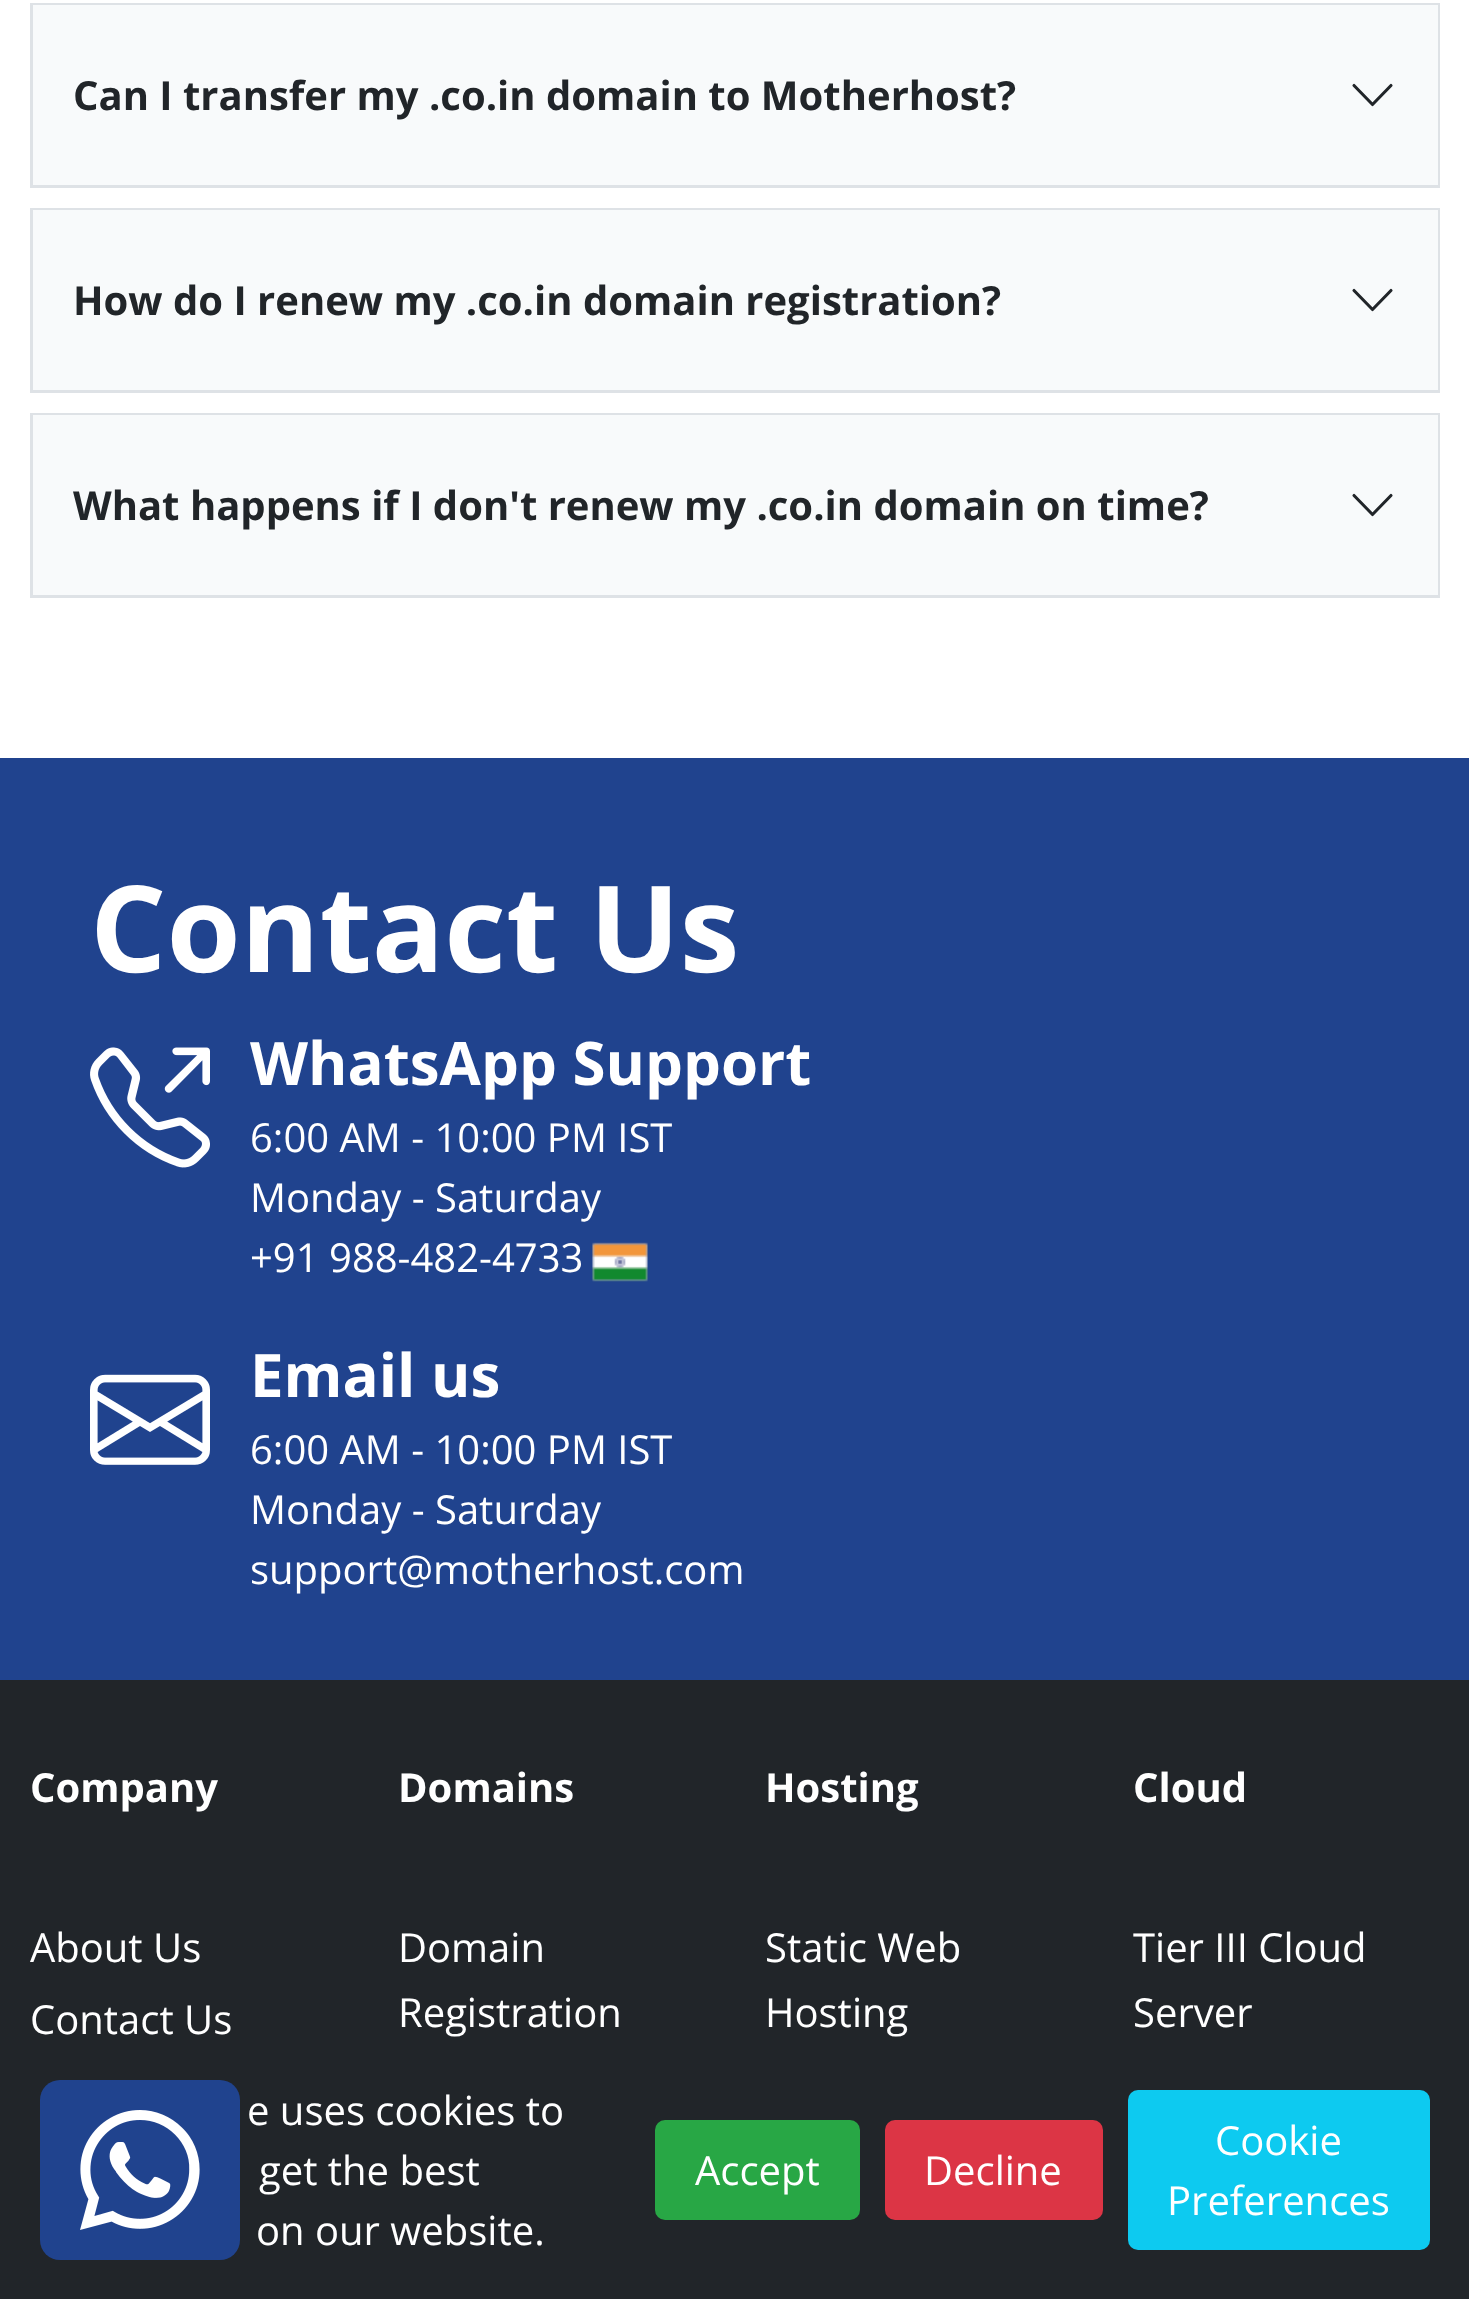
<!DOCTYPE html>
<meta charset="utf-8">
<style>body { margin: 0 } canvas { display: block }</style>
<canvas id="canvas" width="1469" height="2299"></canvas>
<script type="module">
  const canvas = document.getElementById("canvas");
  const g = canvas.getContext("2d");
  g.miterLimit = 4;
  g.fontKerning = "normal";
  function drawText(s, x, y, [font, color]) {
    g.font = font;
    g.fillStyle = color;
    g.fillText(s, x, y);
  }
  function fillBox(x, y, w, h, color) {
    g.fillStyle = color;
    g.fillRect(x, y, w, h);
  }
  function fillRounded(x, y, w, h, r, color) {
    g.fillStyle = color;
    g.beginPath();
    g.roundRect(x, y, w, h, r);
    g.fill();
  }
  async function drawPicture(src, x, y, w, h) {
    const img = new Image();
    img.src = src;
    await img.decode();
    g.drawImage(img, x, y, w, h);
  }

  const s1 = ["bold 40px Open Sans", "#212529"];
  const s2 = ["bold 120px Open Sans", "#FFFFFF"];
  const s3 = ["bold 60px Open Sans", "#FFFFFF"];
  const s4 = ["40px Open Sans", "#FFFFFF"];
  const s5 = ["bold 40px Open Sans", "#FFFFFF"];

  fillBox(0, 0, 1469, 2299, "#FFFFFF");
  g.strokeStyle = "#DEE2E6";
  g.lineWidth = 3;
  g.strokeRect(31.5, 4.5, 1407, 182);
  fillBox(33, 5, 1405, 180, "#F8FAFB");
  drawText("Can I transfer my .co.in domain to Motherhost?", 73, 110, s1);
  g.beginPath();
  g.moveTo(1354, 85.5);
  g.lineTo(1372.5, 104.5);
  g.lineTo(1391, 85.5);
  g.strokeStyle = "#212529";
  g.lineWidth = 3.1;
  g.lineCap = "round";
  g.lineJoin = "round";
  g.stroke();
  g.strokeStyle = "#DEE2E6";
  g.lineWidth = 3;
  g.lineJoin = "miter";
  g.strokeRect(31.5, 209.5, 1407, 182);
  fillBox(33, 210, 1405, 180, "#F8FAFB");
  drawText("How do I renew my .co.in domain registration?", 73, 315, s1);
  g.beginPath();
  g.moveTo(1354, 290.5);
  g.lineTo(1372.5, 309.5);
  g.lineTo(1391, 290.5);
  g.strokeStyle = "#212529";
  g.lineWidth = 3.1;
  g.lineJoin = "round";
  g.stroke();
  g.strokeStyle = "#DEE2E6";
  g.lineWidth = 3;
  g.lineJoin = "miter";
  g.strokeRect(31.5, 414.5, 1407, 182);
  fillBox(33, 415, 1405, 180, "#F8FAFB");
  drawText("What happens if I don't renew my .co.in domain on time?", 73, 520, s1);
  g.beginPath();
  g.moveTo(1354, 495.5);
  g.lineTo(1372.5, 514.5);
  g.lineTo(1391, 495.5);
  g.strokeStyle = "#212529";
  g.lineWidth = 3.1;
  g.lineJoin = "round";
  g.stroke();
  fillBox(0, 758, 1469, 922, "#20438E");
  drawText("Contact Us", 90, 972, s2);
  await drawPicture("pic1.png", 90, 1047, 120, 121);
  drawText("WhatsApp Support", 250, 1085, s3);
  drawText("6:00 AM - 10:00 PM IST", 250, 1152, s4);
  drawText("Monday - Saturday", 250, 1212, s4);
  drawText("+91 988-482-4733", 250, 1272, s4);
  await drawPicture("pic2.png", 592, 1242, 56, 40);
  await drawPicture("pic3.png", 90, 1374, 120, 91);
  drawText("Email us", 250, 1397, s3);
  drawText("6:00 AM - 10:00 PM IST", 250, 1464, s4);
  drawText("Monday - Saturday", 250, 1524, s4);
  drawText("support@motherhost.com", 250, 1584, s4);
  fillBox(0, 1680, 1469, 619, "#212529");
  drawText("Company", 30, 1802, s5);
  drawText("About Us", 30, 1962, s4);
  drawText("Contact Us", 30, 2034, s4);
  drawText("Domains", 398, 1802, s5);
  drawText("Domain", 398, 1962, s4);
  drawText("Registration", 398, 2027, s4);
  drawText("Hosting", 765, 1802, s5);
  drawText("Static Web", 765, 1962, s4);
  drawText("Hosting", 765, 2027, s4);
  drawText("Cloud", 1133, 1802, s5);
  drawText("Tier III Cloud", 1133, 1962, s4);
  drawText("Server", 1133, 2027, s4);
  fillRounded(40, 2080, 200, 180, 20, "#20438E");
  await drawPicture("pic4.png", 80, 2110, 120, 120);
  drawText("e uses cookies to", 247, 2125, s4);
  drawText("get the best", 259, 2185, s4);
  drawText("on our website.", 256, 2245, s4);
  fillRounded(655, 2120, 205, 100, 10, "#28A745");
  drawText("Accept", 695, 2185, s4);
  fillRounded(885, 2120, 218, 100, 10, "#DC3545");
  drawText("Decline", 924, 2185, s4);
  fillRounded(1128, 2090, 302, 160, 10, "#0DCAF0");
  drawText("Cookie", 1215, 2155, s4);
  drawText("Preferences", 1167, 2215, s4);
</script>
